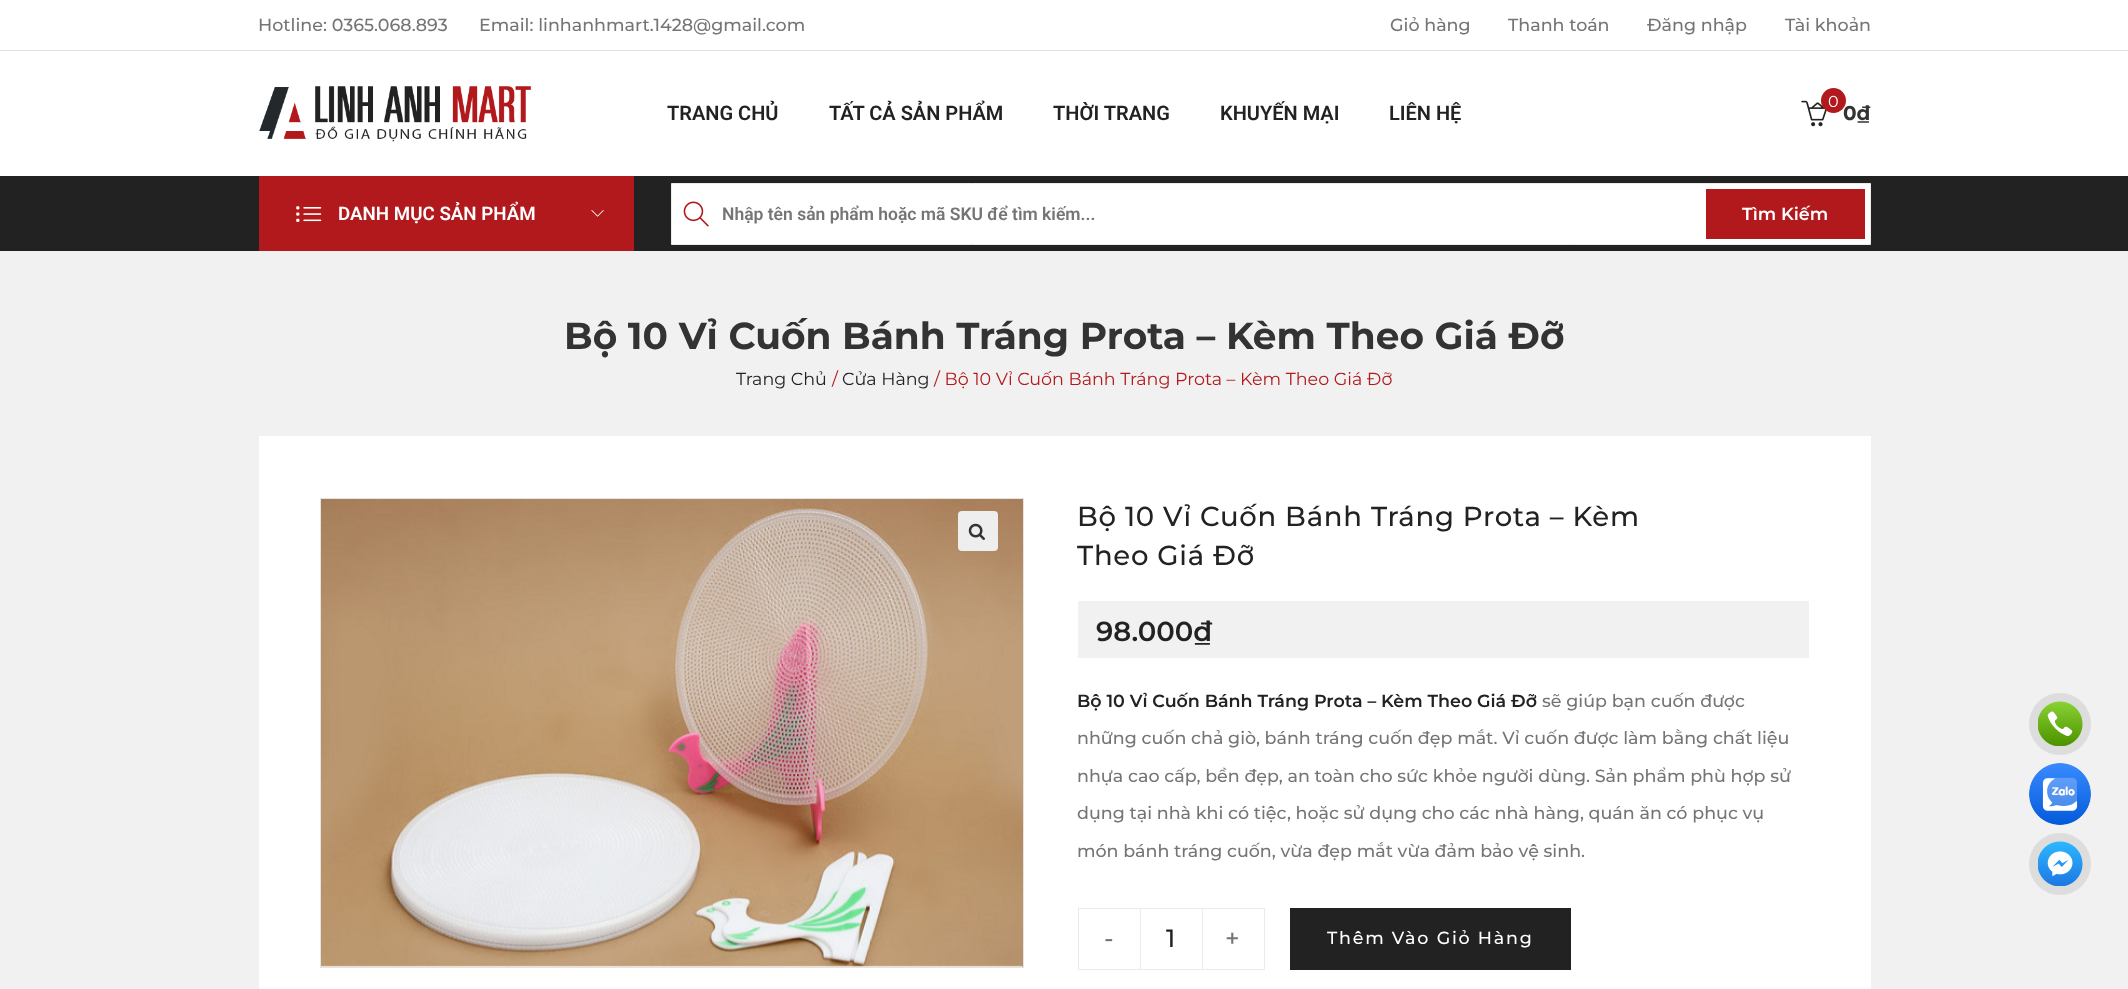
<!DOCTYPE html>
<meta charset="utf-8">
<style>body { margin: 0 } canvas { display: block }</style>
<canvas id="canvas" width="2128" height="989"></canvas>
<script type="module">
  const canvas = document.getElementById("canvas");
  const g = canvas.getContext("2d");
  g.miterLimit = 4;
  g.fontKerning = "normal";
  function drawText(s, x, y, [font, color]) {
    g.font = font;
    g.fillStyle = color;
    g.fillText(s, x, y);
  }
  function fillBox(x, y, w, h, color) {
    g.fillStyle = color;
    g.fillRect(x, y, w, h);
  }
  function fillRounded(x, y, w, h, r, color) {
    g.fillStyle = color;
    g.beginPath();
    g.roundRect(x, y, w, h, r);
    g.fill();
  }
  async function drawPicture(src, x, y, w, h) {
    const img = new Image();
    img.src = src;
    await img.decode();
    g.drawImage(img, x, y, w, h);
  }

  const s1 = ["500 17.5px Montserrat", "#757575"];
  const s2 = ["600 20px Roboto", "#222222"];
  const s3 = ["bold 20px Montserrat", "#333333"];
  const s4 = ["16px Montserrat", "#FFFFFF"];
  const s5 = ["600 18.75px Roboto", "#FFFFFF"];
  const s6 = ["600 17.5px Roboto", "#757575"];
  const s7 = ["600 17.5px Montserrat", "#FFFFFF"];
  const s8 = ["bold 37.5px Montserrat", "#333333"];
  const s9 = ["17.5px Montserrat", "#222222"];
  const s10 = ["17.5px Montserrat", "#B2191C"];
  const s11 = ["500 27.5px Montserrat", "#222222"];
  const s12 = ["600 27.5px Montserrat", "#222222"];
  const s13 = ["600 17.5px Montserrat", "#222222"];
  const s14 = ["500 25px Montserrat", "#757575"];
  const s15 = ["500 25px Montserrat", "#222222"];
  const s16 = ["500 17.5px Montserrat", "#FFFFFF"];

  fillBox(0, 0, 2128, 989, "#F1F1F1");
  fillBox(0, 0, 2128, 50, "#FFFFFF");
  fillBox(0, 50, 2128, 1, "#E2E2E2");
  drawText("Hotline: 0365.068.893", 258, 31, s1);
  drawText("Email: linhanhmart.1428@gmail.com", 479, 31, s1);
  drawText("Giỏ hàng", 1390, 31, s1);
  drawText("Thanh toán", 1508, 31, s1);
  drawText("Đăng nhập", 1647, 31, s1);
  drawText("Tài khoản", 1785, 31, s1);
  fillBox(0, 51, 2128, 125, "#FFFFFF");
  await drawPicture("pic1.png", 259, 86, 273, 56);
  drawText("TRANG CHỦ", 667, 120, s2);
  drawText("TẤT CẢ SẢN PHẨM", 829, 120, s2);
  drawText("THỜI TRANG", 1053, 120, s2);
  drawText("KHUYẾN MẠI", 1220, 120, s2);
  drawText("LIÊN HỆ", 1389, 120, s2);
  await drawPicture("pic2.png", 1801, 100, 26, 27);
  drawText("0₫", 1843, 120, s3);
  g.fillStyle = "#B2191C";
  g.beginPath();
  g.arc(1833.5, 100.5, 12.5, 0, Math.PI * 2);
  g.fill();
  drawText("0", 1828, 107, s4);
  fillBox(0, 176, 2128, 75, "#222222");
  fillBox(259, 176, 375, 75, "#B2191C");
  drawText("DANH MỤC SẢN PHẨM", 338, 220, s5);
  await drawPicture("pic3.png", 296, 206, 26, 16);
  await drawPicture("pic4.png", 591, 210, 13, 7);
  g.beginPath();
  g.rect(671.5, 183.5, 1199, 61);
  g.fill();
  g.strokeStyle = "#EBEBEB";
  g.stroke();
  await drawPicture("pic5.png", 683, 201, 26, 26);
  drawText("Nhập tên sản phẩm hoặc mã SKU để tìm kiếm...", 722, 220, s6);
  fillBox(1706, 189, 159, 50, "#B2191C");
  drawText("Tìm Kiếm", 1742, 220, s7);
  drawText("Bộ 10 Vỉ Cuốn Bánh Tráng Prota – Kèm Theo Giá Đỡ", 564, 349, s8);
  drawText("Trang Chủ", 736, 385, s9);
  drawText("/", 832, 385, s10);
  drawText("Cửa Hàng", 842, 385, s9);
  drawText("/ Bộ 10 Vỉ Cuốn Bánh Tráng Prota – Kèm Theo Giá Đỡ", 934, 385, s10);
  fillBox(259, 436, 1612, 553, "#FFFFFF");
  g.strokeStyle = "#E4E4E4";
  g.strokeRect(320.5, 498.5, 703, 469);
  await drawPicture("pic7.png", 1022, 965, 1, 2);
  await drawPicture("pic6.png", 321, 499, 702, 468);
  fillRounded(958, 511, 40, 40, 4, "#EEEEEE");
  await drawPicture("pic8.png", 968, 523, 17, 17);
  g.letterSpacing = "0.75px";
  drawText("Bộ 10 Vỉ Cuốn Bánh Tráng Prota – Kèm", 1077, 526, s11);
  drawText("Theo Giá Đỡ", 1077, 565, s11);
  fillBox(1078, 601, 731, 57, "#F1F1F1");
  g.letterSpacing = "0px";
  drawText("98.000₫", 1096, 641, s12);
  drawText("Bộ 10 Vỉ Cuốn Bánh Tráng Prota – Kèm Theo Giá Đỡ", 1077, 707, s13);
  drawText("sẽ giúp bạn cuốn được", 1542, 707, s1);
  drawText("những cuốn chả giò, bánh tráng cuốn đẹp mắt. Vỉ cuốn được làm bằng chất liệu", 1077, 744, s1);
  drawText("nhựa cao cấp, bền đẹp, an toàn cho sức khỏe người dùng. Sản phẩm phù hợp sử", 1077, 782, s1);
  drawText("dụng tại nhà khi có tiệc, hoặc sử dụng cho các nhà hàng, quán ăn có phục vụ", 1077, 819, s1);
  drawText("món bánh tráng cuốn, vừa đẹp mắt vừa đảm bảo vệ sinh.", 1077, 857, s1);
  fillBox(1078, 908, 62, 1, "#EBEBEB");
  fillBox(1078, 969, 62, 1, "#EBEBEB");
  fillBox(1078, 908, 1, 62, "#EBEBEB");
  drawText("-", 1104, 947, s14);
  g.strokeStyle = "#EBEBEB";
  g.strokeRect(1140.5, 908.5, 62, 61);
  drawText("1", 1166, 947, s15);
  fillBox(1203, 908, 62, 1, "#EBEBEB");
  fillBox(1264, 908, 1, 62, "#EBEBEB");
  fillBox(1203, 969, 62, 1, "#EBEBEB");
  drawText("+", 1225, 947, s14);
  fillBox(1290, 908, 281, 62, "#222222");
  g.letterSpacing = "1.75px";
  drawText("Thêm Vào Giỏ Hàng", 1327, 944, s16);
  g.fillStyle = "#DDDDDD";
  g.beginPath();
  g.arc(2060, 724, 31, 0, Math.PI * 2);
  g.fill();
  await drawPicture("pic9.png", 2038, 701, 45, 45);
  g.beginPath();
  g.arc(2060, 794, 31, 0, Math.PI * 2);
  g.fill();
  await drawPicture("pic10.png", 2029, 763, 62, 62);
  g.beginPath();
  g.arc(2060, 864, 31, 0, Math.PI * 2);
  g.fill();
  await drawPicture("pic11.png", 2038, 841, 45, 45);
</script>
